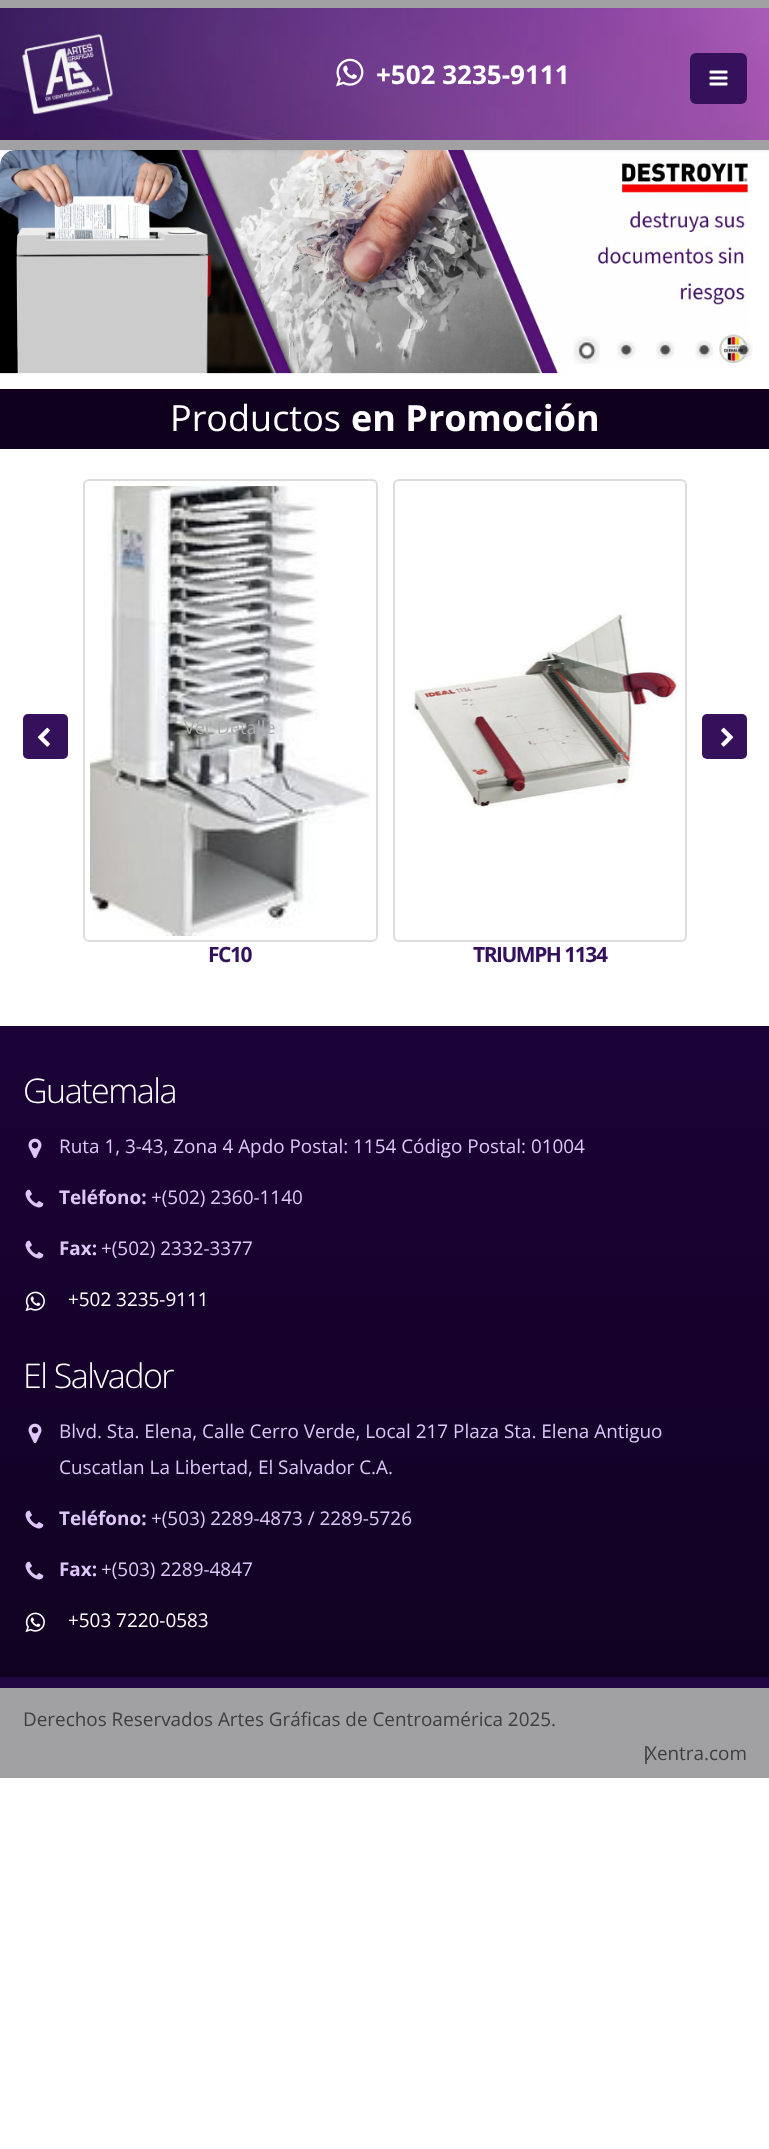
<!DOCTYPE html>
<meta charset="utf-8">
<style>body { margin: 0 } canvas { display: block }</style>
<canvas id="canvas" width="769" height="2149"></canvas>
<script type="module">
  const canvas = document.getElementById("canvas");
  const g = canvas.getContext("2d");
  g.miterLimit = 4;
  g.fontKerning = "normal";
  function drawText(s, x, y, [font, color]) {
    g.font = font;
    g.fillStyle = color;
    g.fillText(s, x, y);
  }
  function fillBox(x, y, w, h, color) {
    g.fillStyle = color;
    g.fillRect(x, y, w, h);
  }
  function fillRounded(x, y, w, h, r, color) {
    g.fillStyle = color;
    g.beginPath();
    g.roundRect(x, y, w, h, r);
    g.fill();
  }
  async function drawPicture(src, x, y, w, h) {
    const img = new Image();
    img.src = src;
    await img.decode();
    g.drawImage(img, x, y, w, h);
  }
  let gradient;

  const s1 = ["bold 26px Open Sans", "#FFFFFF"];
  const s2 = ["36px Open Sans", "#FFFFFF"];
  const s3 = ["bold 36px Open Sans", "#FFFFFF"];
  const s4 = ["18px Open Sans", "#AAABAC"];
  const s5 = ["bold 21px Open Sans", "#34115C"];
  const s6 = ["300 34px Open Sans", "#FFFFFF"];
  const s7 = ["18.9px Open Sans", "#DEC6F8"];
  const s8 = ["bold 18.9px Open Sans", "#DEC6F8"];
  const s9 = ["18.9px Open Sans", "#FFFFFF"];
  const s10 = ["18.9px Open Sans", "#3E3E3E"];

  fillBox(0, 0, 769, 2149, "#FFFFFF");
  await drawPicture("pic5.png", 0, 150, 749, 224);
  g.fillStyle = "rgba(0, 0, 0, 0.1)";
  g.filter = "blur(2px)";
  g.beginPath();
  g.rect(0, 0, 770, 150);
  g.fill();
  g.filter = "none";
  await drawPicture("pic1.png", 0, 8, 769, 132);
  fillBox(0, 0, 769, 8, "#A1A0A2");
  fillBox(0, 140, 769, 10, "#A1A0A2");
  await drawPicture("pic2.png", 22, 34, 91, 80);
  await drawPicture("pic3.png", 336, 58, 28, 29);
  drawText("+502 3235-9111", 376, 84, s1);
  fillRounded(690, 53, 57, 51, 6, "#35115C");
  await drawPicture("pic4.png", 709, 70, 19, 16);
  await drawPicture("pic6.png", 573, 336, 27, 28);
  await drawPicture("pic7.png", 617, 340, 19, 19);
  await drawPicture("pic7.png", 656, 340, 19, 19);
  await drawPicture("pic7.png", 695, 340, 19, 19);
  await drawPicture("pic8.png", 734, 340, 19, 19);
  fillBox(0, 389, 769, 60, "#0F011E");
  drawText("Productos", 170, 431, s2);
  drawText("en Promoción", 351, 431, s3);
  fillRounded(23, 714, 45, 45, 5, "#35115C");
  await drawPicture("pic9.png", 37, 727, 13, 20);
  fillRounded(702, 714, 45, 45, 5, "#35115C");
  await drawPicture("pic10.png", 721, 727, 13, 20);
  g.beginPath();
  g.roundRect(84, 480, 293, 461, 5);
  g.strokeStyle = "#DDDDDD";
  g.lineWidth = 2;
  g.stroke();
  await drawPicture("pic11.png", 90, 486, 280, 450);
  drawText("Ver Detalle", 184, 734, s4);
  g.letterSpacing = "-1.5px";
  drawText("FC10", 208, 962, s5);
  g.beginPath();
  g.roundRect(394, 480, 292, 461, 5);
  g.stroke();
  await drawPicture("pic12.png", 412, 612, 268, 195);
  drawText("TRIUMPH 1134", 473, 962, s5);
  gradient = g.createLinearGradient(0, 1026, 0, 1778);
  gradient.addColorStop(0, "#1B0237");
  gradient.addColorStop(1, "#0F011E");
  g.fillStyle = gradient;
  g.fillRect(0, 1026, 769, 651);
  drawText("Guatemala", 23, 1103, s6);
  await drawPicture("pic13.png", 28, 1138, 14, 21);
  g.letterSpacing = "0px";
  drawText("Ruta 1, 3-43, Zona 4 Apdo Postal: 1154 Código Postal: 01004", 59, 1153, s7);
  await drawPicture("pic14.png", 25, 1189, 19, 19);
  drawText("Teléfono:", 59, 1204, s8);
  drawText("+(502) 2360-1140", 151, 1204, s7);
  await drawPicture("pic15.png", 25, 1240, 19, 19);
  drawText("Fax:", 59, 1255, s8);
  drawText("+(502) 2332-3377", 101, 1255, s7);
  await drawPicture("pic16.png", 25, 1291, 20, 21);
  drawText("+502 3235-9111", 68, 1306, s9);
  g.letterSpacing = "-1.5px";
  drawText("El Salvador", 23, 1388, s6);
  await drawPicture("pic17.png", 28, 1423, 14, 21);
  g.letterSpacing = "0px";
  drawText("Blvd. Sta. Elena, Calle Cerro Verde, Local 217 Plaza Sta. Elena Antiguo", 59, 1438, s7);
  drawText("Cuscatlan La Libertad, El Salvador C.A.", 59, 1474, s7);
  await drawPicture("pic18.png", 25, 1510, 19, 19);
  drawText("Teléfono:", 59, 1525, s8);
  drawText("+(503) 2289-4873 / 2289-5726", 151, 1525, s7);
  await drawPicture("pic19.png", 25, 1561, 19, 19);
  drawText("Fax:", 59, 1576, s8);
  drawText("+(503) 2289-4847", 101, 1576, s7);
  await drawPicture("pic20.png", 25, 1612, 20, 21);
  drawText("+503 7220-0583", 68, 1627, s9);
  fillBox(0, 1688, 769, 90, "#A1A0A2");
  fillBox(0, 1677, 769, 11, "#220644");
  drawText("Derechos Reservados Artes Gráficas de Centroamérica 2025.", 23, 1726, s10);
  fillBox(645, 1746, 2, 18, "#505050");
  drawText("Xentra.com", 646, 1760, s10);
</script>
